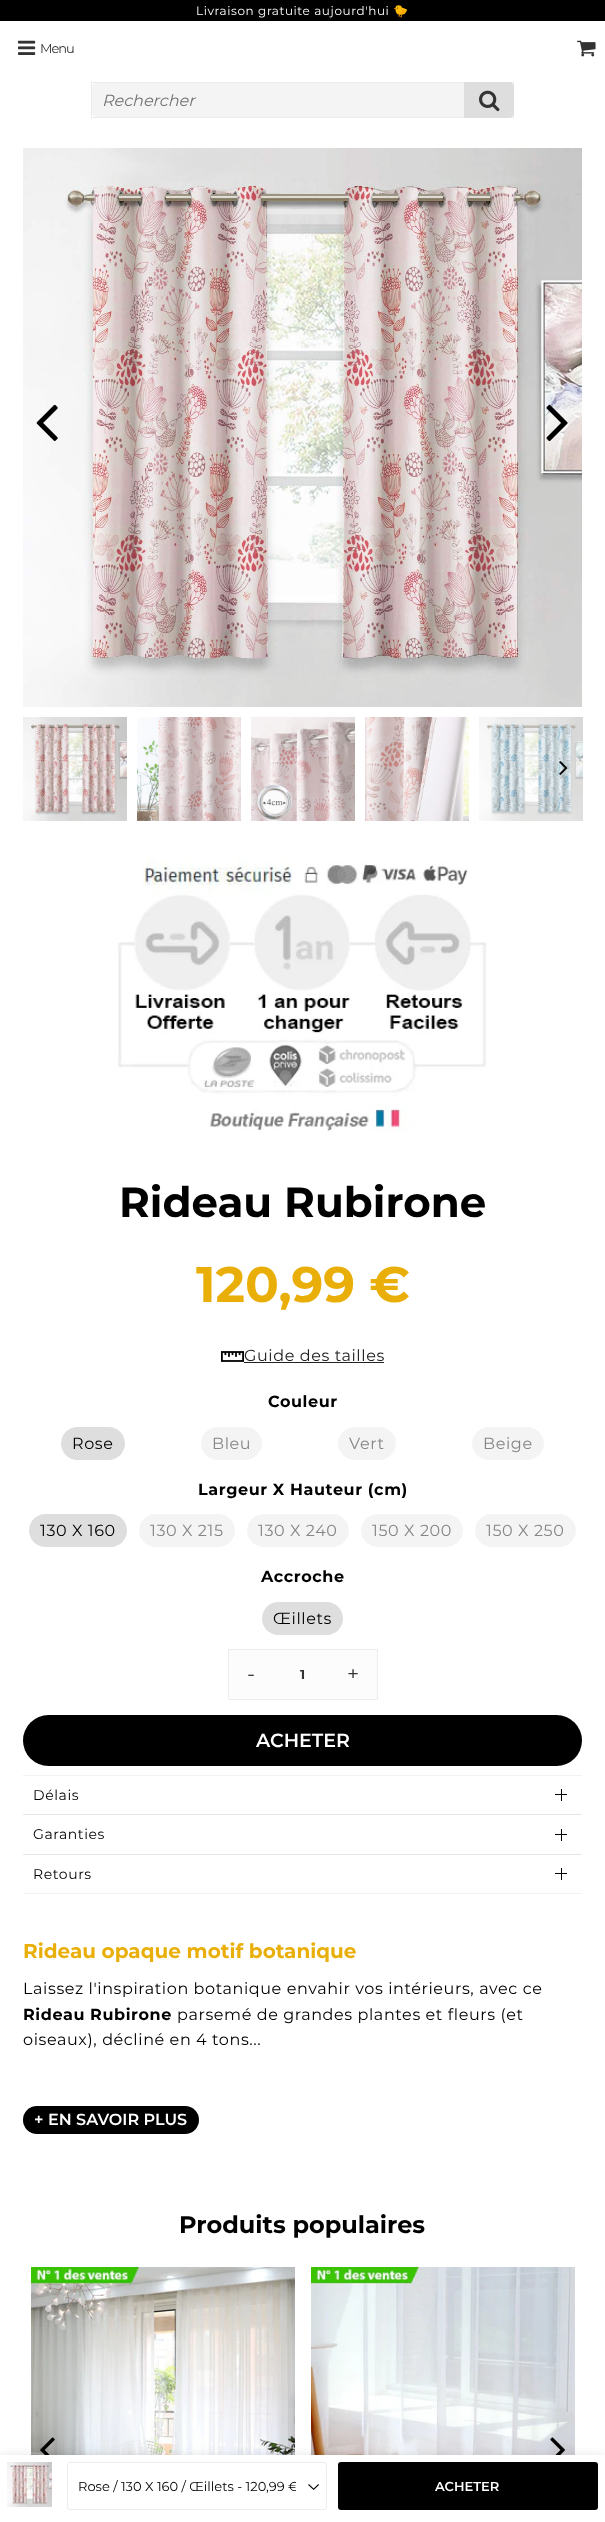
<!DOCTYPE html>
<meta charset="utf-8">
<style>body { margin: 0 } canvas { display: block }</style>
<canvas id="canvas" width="605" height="2522"></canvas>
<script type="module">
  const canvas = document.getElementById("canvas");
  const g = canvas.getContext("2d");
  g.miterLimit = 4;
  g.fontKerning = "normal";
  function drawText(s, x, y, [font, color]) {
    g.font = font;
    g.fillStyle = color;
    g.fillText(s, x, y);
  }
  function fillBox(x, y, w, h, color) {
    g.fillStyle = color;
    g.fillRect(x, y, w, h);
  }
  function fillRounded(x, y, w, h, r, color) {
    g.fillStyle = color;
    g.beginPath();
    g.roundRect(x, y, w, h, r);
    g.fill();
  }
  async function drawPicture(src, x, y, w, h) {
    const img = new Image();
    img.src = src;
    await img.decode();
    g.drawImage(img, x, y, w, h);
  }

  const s1 = ["12px Montserrat", "#FFFFFF"];
  const s2 = ["12px Noto Color Emoji", "#FFFFFF"];
  const s3 = ["13px Montserrat", "#333333"];
  const s4 = ["italic 16px Montserrat", "#757575"];
  const s5 = ["bold 42px Montserrat", "#000000"];
  const s6 = ["bold 50px Montserrat", "#E9AF08"];
  const s7 = ["16px Montserrat", "#222222"];
  const s8 = ["bold 16px Montserrat", "#000000"];
  const s9 = ["16px Montserrat", "#000000"];
  const s10 = ["16px Montserrat", "#878585"];
  const s11 = ["21px Montserrat", "#333333"];
  const s12 = ["bold 13px Montserrat", "#333333"];
  const s13 = ["600 19px Montserrat", "#FFFFFF"];
  const s14 = ["14px Montserrat", "#000000"];
  const s15 = ["bold 20px Montserrat", "#E9AF08"];
  const s16 = ["600 16px Montserrat", "#FFFFFF"];
  const s17 = ["13px Montserrat", "#000000"];
  const s18 = ["600 13px Montserrat", "#FFFFFF"];
  const s19 = ["bold 24px Montserrat", "#000000"];

  fillBox(0, 0, 605, 2522, "#FFFFFF");
  fillBox(0, 0, 605, 21, "#000000");
  g.letterSpacing = "0.6px";
  drawText("Livraison gratuite aujourd'hui", 196, 15, s1);
  drawText("🐤", 393, 15, s2);
  await drawPicture("pic1.png", 18, 40, 18, 15);
  g.letterSpacing = "-1px";
  drawText("Menu", 40, 53, s3);
  await drawPicture("pic2.png", 577, 40, 19, 17);
  fillRounded(91, 82, 423, 36, 8, "#F4F4F4");
  g.strokeStyle = "#ECECEC";
  g.strokeRect(91.5, 82.5, 422, 35);
  g.letterSpacing = "0px";
  drawText("Rechercher", 102, 106, s4);
  g.fillStyle = "#DEDEDE";
  g.beginPath();
  g.roundRect(464, 82, 50, 36, [0, 5, 5, 0]);
  g.fill();
  await drawPicture("pic3.png", 479, 90, 21, 22);
  await drawPicture("pic4.png", 23, 148, 559, 559);
  await drawPicture("pic5.png", 36, 404, 22, 37);
  await drawPicture("pic6.png", 546, 404, 22, 37);
  await drawPicture("pic7.png", 23, 717, 104, 104);
  await drawPicture("pic8.png", 137, 717, 104, 104);
  await drawPicture("pic9.png", 251, 717, 104, 104);
  await drawPicture("pic10.png", 365, 717, 104, 104);
  await drawPicture("pic11.png", 479, 717, 104, 104);
  await drawPicture("pic12.png", 559, 761, 9, 14);
  await drawPicture("pic13.png", 117, 858, 370, 273);
  drawText("Rideau Rubirone", 119, 1217, s5);
  drawText("120,99 €", 196, 1302, s6);
  await drawPicture("pic14.png", 221, 1351, 23, 11);
  g.letterSpacing = "0.6px";
  drawText("Guide des tailles", 244, 1361, s7);
  fillBox(244, 1362, 140, 1, "#222222");
  drawText("Couleur", 268, 1407, s8);
  fillRounded(61, 1427, 64, 33, 16.5, "#DEDEDE");
  drawText("Rose", 72, 1449, s9);
  g.fillStyle = "#F4F4F4";
  g.beginPath();
  g.roundRect(201.5, 1427.5, 60, 32, 16);
  g.fill();
  g.strokeStyle = "#F4F4F4";
  g.stroke();
  drawText("Bleu", 212, 1449, s10);
  g.fillStyle = "#F4F4F4";
  g.beginPath();
  g.roundRect(338.5, 1427.5, 57, 32, 16);
  g.fill();
  g.stroke();
  drawText("Vert", 349, 1449, s10);
  g.fillStyle = "#F4F4F4";
  g.beginPath();
  g.roundRect(472.5, 1427.5, 71, 32, 16);
  g.fill();
  g.stroke();
  drawText("Beige", 483, 1449, s10);
  drawText("Largeur X Hauteur (cm)", 198, 1495, s8);
  fillRounded(29, 1514, 98, 33, 16.5, "#DEDEDE");
  drawText("130 X 160", 40, 1536, s9);
  g.fillStyle = "#F4F4F4";
  g.beginPath();
  g.roundRect(139.5, 1514.5, 95, 32, 16);
  g.fill();
  g.stroke();
  drawText("130 X 215", 150, 1536, s10);
  g.fillStyle = "#F4F4F4";
  g.beginPath();
  g.roundRect(247.5, 1514.5, 101, 32, 16);
  g.fill();
  g.stroke();
  drawText("130 X 240", 258, 1536, s10);
  g.fillStyle = "#F4F4F4";
  g.beginPath();
  g.roundRect(361.5, 1514.5, 101, 32, 16);
  g.fill();
  g.stroke();
  drawText("150 X 200", 372, 1536, s10);
  g.fillStyle = "#F4F4F4";
  g.beginPath();
  g.roundRect(475.5, 1514.5, 100, 32, 16);
  g.fill();
  g.stroke();
  drawText("150 X 250", 486, 1536, s10);
  drawText("Accroche", 261, 1582, s8);
  fillRounded(262, 1602, 81, 33, 16.5, "#DEDEDE");
  drawText("Œillets", 273, 1624, s9);
  g.fillStyle = "#FCFCFC";
  g.beginPath();
  g.rect(228.5, 1649.5, 149, 50);
  g.fill();
  g.strokeStyle = "#ECECEC";
  g.stroke();
  drawText("-", 247, 1681, s11);
  g.letterSpacing = "0px";
  drawText("1", 300, 1679, s12);
  g.letterSpacing = "0.6px";
  drawText("+", 347, 1681, s11);
  fillRounded(23, 1715, 559, 51, 25.5, "#000000");
  g.letterSpacing = "0px";
  drawText("ACHETER", 256, 1747, s13);
  fillBox(23, 1775, 559, 1, "#F2F2F2");
  g.letterSpacing = "0.6px";
  drawText("Délais", 33, 1800, s14);
  fillBox(555, 1794, 12, 1, "#000000");
  fillBox(561, 1789, 1, 12, "#000000");
  fillBox(23, 1814, 559, 1, "#E6E6E6");
  drawText("Garanties", 33, 1839, s14);
  fillBox(555, 1834, 12, 1, "#000000");
  fillBox(561, 1829, 1, 12, "#000000");
  fillBox(23, 1893, 559, 1, "#F2F2F2");
  fillBox(23, 1854, 559, 1, "#E6E6E6");
  drawText("Retours", 33, 1879, s14);
  fillBox(555, 1873, 12, 1, "#000000");
  fillBox(561, 1868, 1, 12, "#000000");
  g.letterSpacing = "0px";
  drawText("Rideau opaque motif botanique", 23, 1958, s15);
  g.letterSpacing = "0.6px";
  drawText("Laissez l'inspiration botanique envahir vos intérieurs, avec ce", 23, 1994, s9);
  drawText("Rideau Rubirone", 23, 2020, s8);
  drawText("parsemé de grandes plantes et fleurs (et", 177, 2020, s9);
  drawText("oiseaux), décliné en 4 tons...", 23, 2045, s9);
  fillRounded(23, 2106, 176, 28, 14, "#000000");
  g.letterSpacing = "0px";
  drawText("+", 34, 2125, s16);
  drawText("EN SAVOIR PLUS", 48, 2125, s16);
  await drawPicture("pic17.png", 31, 2267, 264, 188);
  await drawPicture("pic18.png", 311, 2267, 264, 188);
  await drawPicture("pic19.png", 40, 2437, 15, 18);
  await drawPicture("pic20.png", 550, 2437, 15, 18);
  g.fillStyle = "rgba(0, 0, 0, 0.1)";
  g.filter = "blur(5px)";
  g.beginPath();
  g.rect(0, 2455, 605, 67);
  g.fill();
  g.filter = "none";
  fillBox(0, 2455, 605, 67, "#FFFFFF");
  await drawPicture("pic15.png", 7, 2462, 45, 45);
  await drawPicture("pic16.png", 308, 2484, 11, 6);
  g.beginPath();
  g.roundRect(67.5, 2462.5, 259, 47, 2.5);
  g.stroke();
  g.save();
  g.beginPath();
  g.rect(78, 2464, 218, 45);
  g.clip();
  drawText("Rose / 130 X 160 / Œillets - 120,99 €", 78, 2491, s17);
  g.restore();
  fillRounded(338, 2462, 260, 48, 3, "#000000");
  drawText("ACHETER", 435, 2491, s18);
  drawText("Produits populaires", 179, 2233, s19);
</script>
